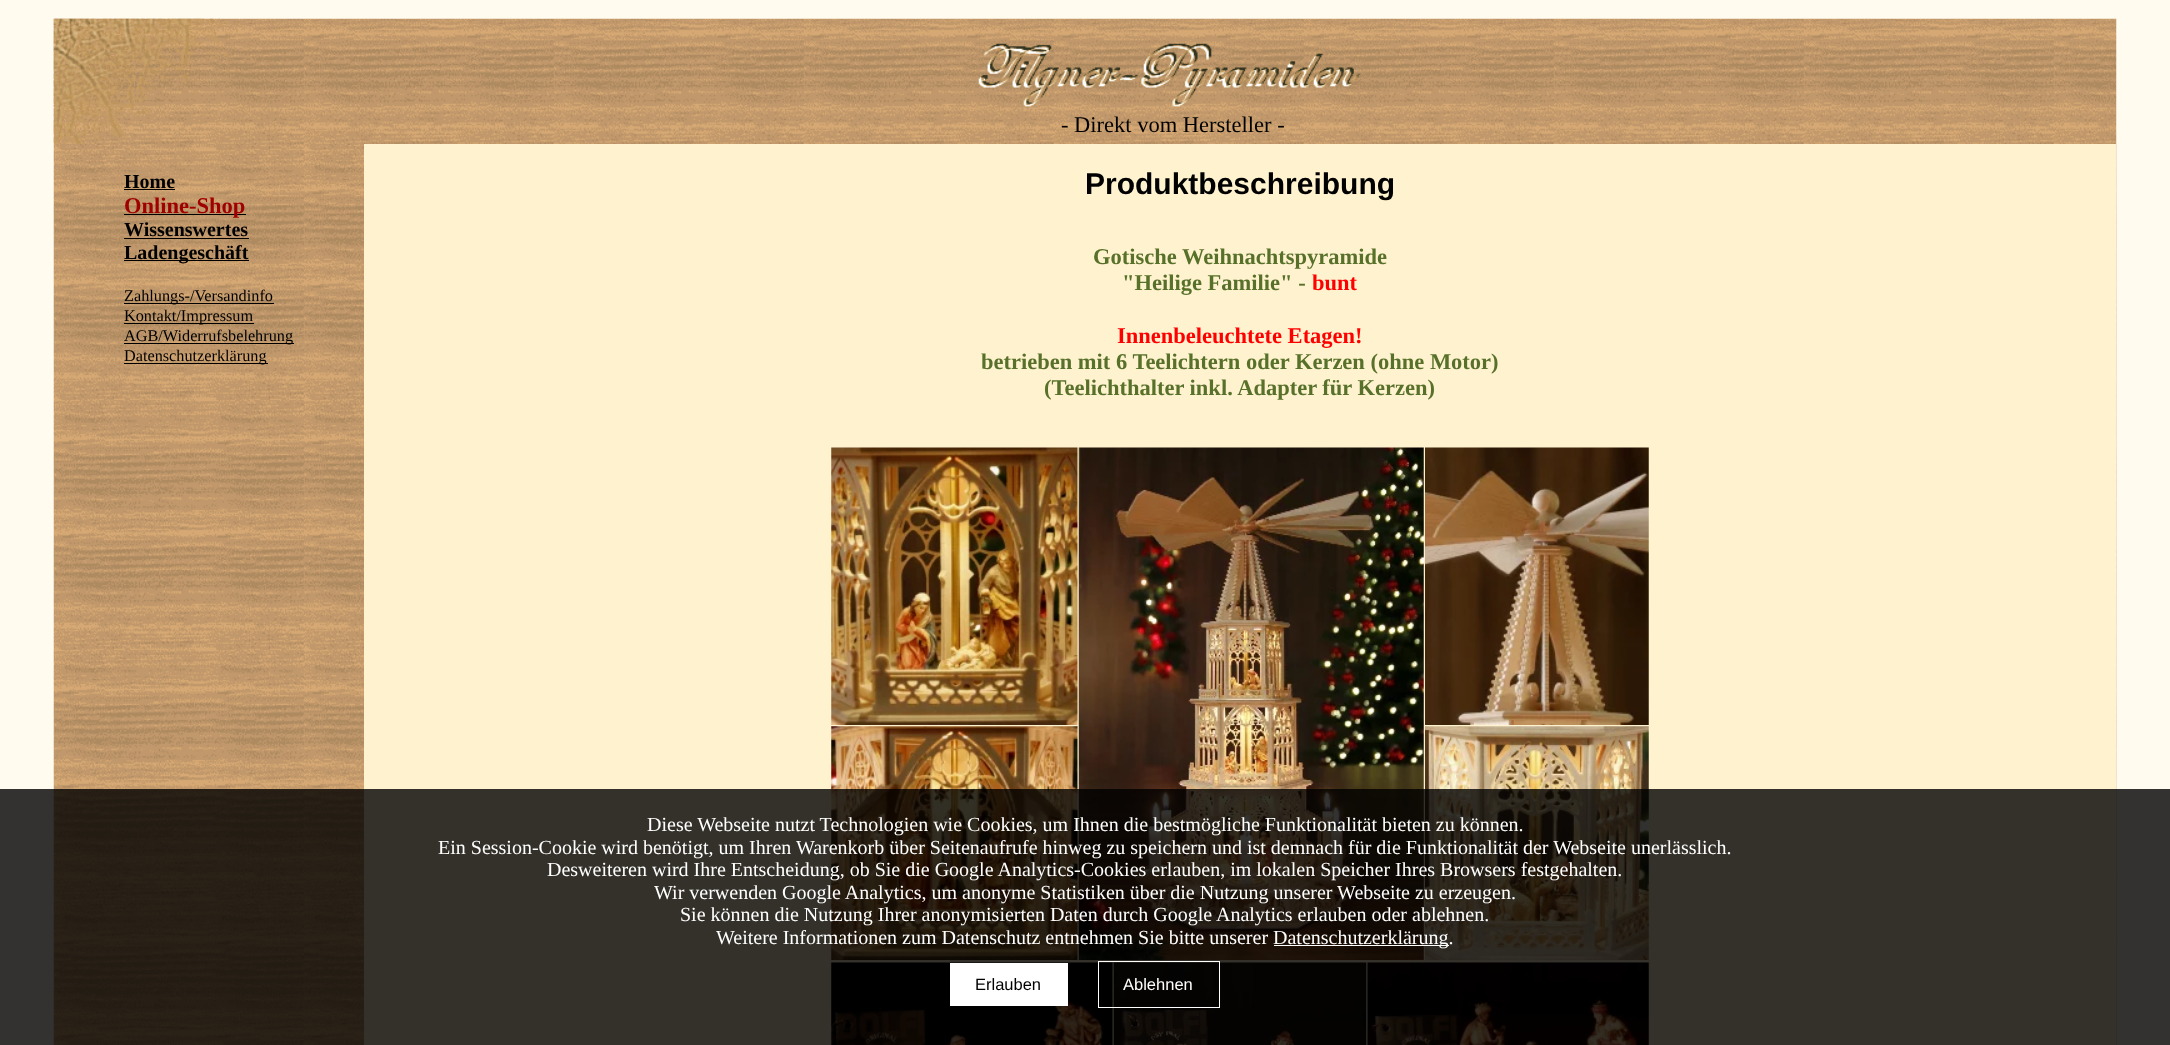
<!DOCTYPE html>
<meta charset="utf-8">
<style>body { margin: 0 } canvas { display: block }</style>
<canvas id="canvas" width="2170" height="1045"></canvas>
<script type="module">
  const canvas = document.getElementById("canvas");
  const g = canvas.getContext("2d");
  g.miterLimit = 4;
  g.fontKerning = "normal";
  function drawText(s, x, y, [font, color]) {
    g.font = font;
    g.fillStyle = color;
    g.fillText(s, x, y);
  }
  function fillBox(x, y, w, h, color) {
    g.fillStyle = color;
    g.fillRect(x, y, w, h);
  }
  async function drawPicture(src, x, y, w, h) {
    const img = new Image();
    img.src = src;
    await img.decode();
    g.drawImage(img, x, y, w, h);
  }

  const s1 = ["22.5px Liberation Serif", "#000000"];
  const s2 = ["bold 20px Liberation Serif", "#000000"];
  const s3 = ["bold 22.5px Liberation Serif", "#A00000"];
  const s4 = ["16.25px Liberation Serif", "#000000"];
  const s5 = ["bold 30px Liberation Sans", "#000000"];
  const s6 = ["bold 22.5px Liberation Serif", "#58712A"];
  const s7 = ["bold 22.5px Liberation Serif", "#FF0000"];
  const s8 = ["20px Liberation Serif", "#FFFFFF"];
  const s9 = ["16.5px Liberation Sans", "#000000"];
  const s10 = ["16.5px Liberation Sans", "#FFFFFF"];

  fillBox(0, 0, 2170, 1045, "#FFFBEF");
  await drawPicture("pic1.png", 53, 18, 2064, 1027);
  await drawPicture("pic2.png", 53, 18, 185, 126);
  await drawPicture("pic3.png", 978, 43, 383, 64);
  drawText("- Direkt vom Hersteller -", 1061, 132, s1);
  drawText("Home", 124, 188, s2);
  fillBox(124, 189, 51, 1, "#000000");
  fillBox(124, 214, 122, 1, "#000000");
  drawText("Online-Shop", 124, 213, s3);
  drawText("Wissenswertes", 124, 236, s2);
  fillBox(124, 238, 125, 1, "#000000");
  fillBox(124, 260, 125, 1, "#000000");
  drawText("Ladengeschäft", 124, 259, s2);
  fillBox(124, 303, 150, 1, "#000000");
  drawText("Zahlungs-/Versandinfo", 124, 301, s4);
  fillBox(124, 323, 130, 1, "#000000");
  drawText("Kontakt/Impressum", 124, 321, s4);
  fillBox(124, 343, 170, 1, "#000000");
  drawText("AGB/Widerrufsbelehrung", 124, 341, s4);
  fillBox(124, 363, 144, 1, "#000000");
  drawText("Datenschutzerklärung", 124, 361, s4);
  fillBox(364, 144, 1752, 901, "#FFF2CF");
  drawText("Produktbeschreibung", 1085, 194, s5);
  drawText("Gotische Weihnachtspyramide", 1093, 264, s6);
  drawText("\"Heilige Familie\" -", 1122, 290, s6);
  drawText("bunt", 1312, 290, s7);
  drawText("Innenbeleuchtete Etagen!", 1117, 343, s7);
  drawText("betrieben mit 6 Teelichtern oder Kerzen (ohne Motor)", 981, 369, s6);
  drawText("(Teelichthalter inkl. Adapter für Kerzen)", 1044, 395, s6);
  await drawPicture("pic4.png", 831, 447, 247, 278);
  await drawPicture("pic5.png", 831, 726, 247, 234);
  await drawPicture("pic6.png", 1078, 447, 346, 513);
  await drawPicture("pic7.png", 1425, 447, 224, 278);
  await drawPicture("pic8.png", 1425, 726, 224, 234);
  await drawPicture("pic9.png", 831, 962, 282, 83);
  await drawPicture("pic10.png", 1113, 962, 254, 83);
  await drawPicture("pic11.png", 1367, 962, 282, 83);
  fillBox(0, 789, 2170, 256, "rgba(0, 0, 0, 0.8)");
  drawText("Diese Webseite nutzt Technologien wie Cookies, um Ihnen die bestmögliche Funktionalität bieten zu können.", 647, 831, s8);
  drawText("Ein Session-Cookie wird benötigt, um Ihren Warenkorb über Seitenaufrufe hinweg zu speichern und ist demnach für die Funktionalität der Webseite unerlässlich.", 438, 854, s8);
  drawText("Desweiteren wird Ihre Entscheidung, ob Sie die Google Analytics-Cookies erlauben, im lokalen Speicher Ihres Browsers festgehalten.", 547, 876, s8);
  drawText("Wir verwenden Google Analytics, um anonyme Statistiken über die Nutzung unserer Webseite zu erzeugen.", 654, 899, s8);
  drawText("Sie können die Nutzung Ihrer anonymisierten Daten durch Google Analytics erlauben oder ablehnen.", 680, 921, s8);
  drawText("Weitere Informationen zum Datenschutz entnehmen Sie bitte unserer", 716, 944, s8);
  fillBox(1274, 945, 175, 1, "#FFFFFF");
  drawText("Datenschutzerklärung.", 1273, 944, s8);
  fillBox(950, 963, 118, 43, "#FFFFFF");
  drawText("Erlauben", 975, 990, s9);
  g.strokeStyle = "#FFFFFF";
  g.strokeRect(1098.5, 961.5, 121, 46);
  drawText("Ablehnen", 1123, 990, s10);
</script>
